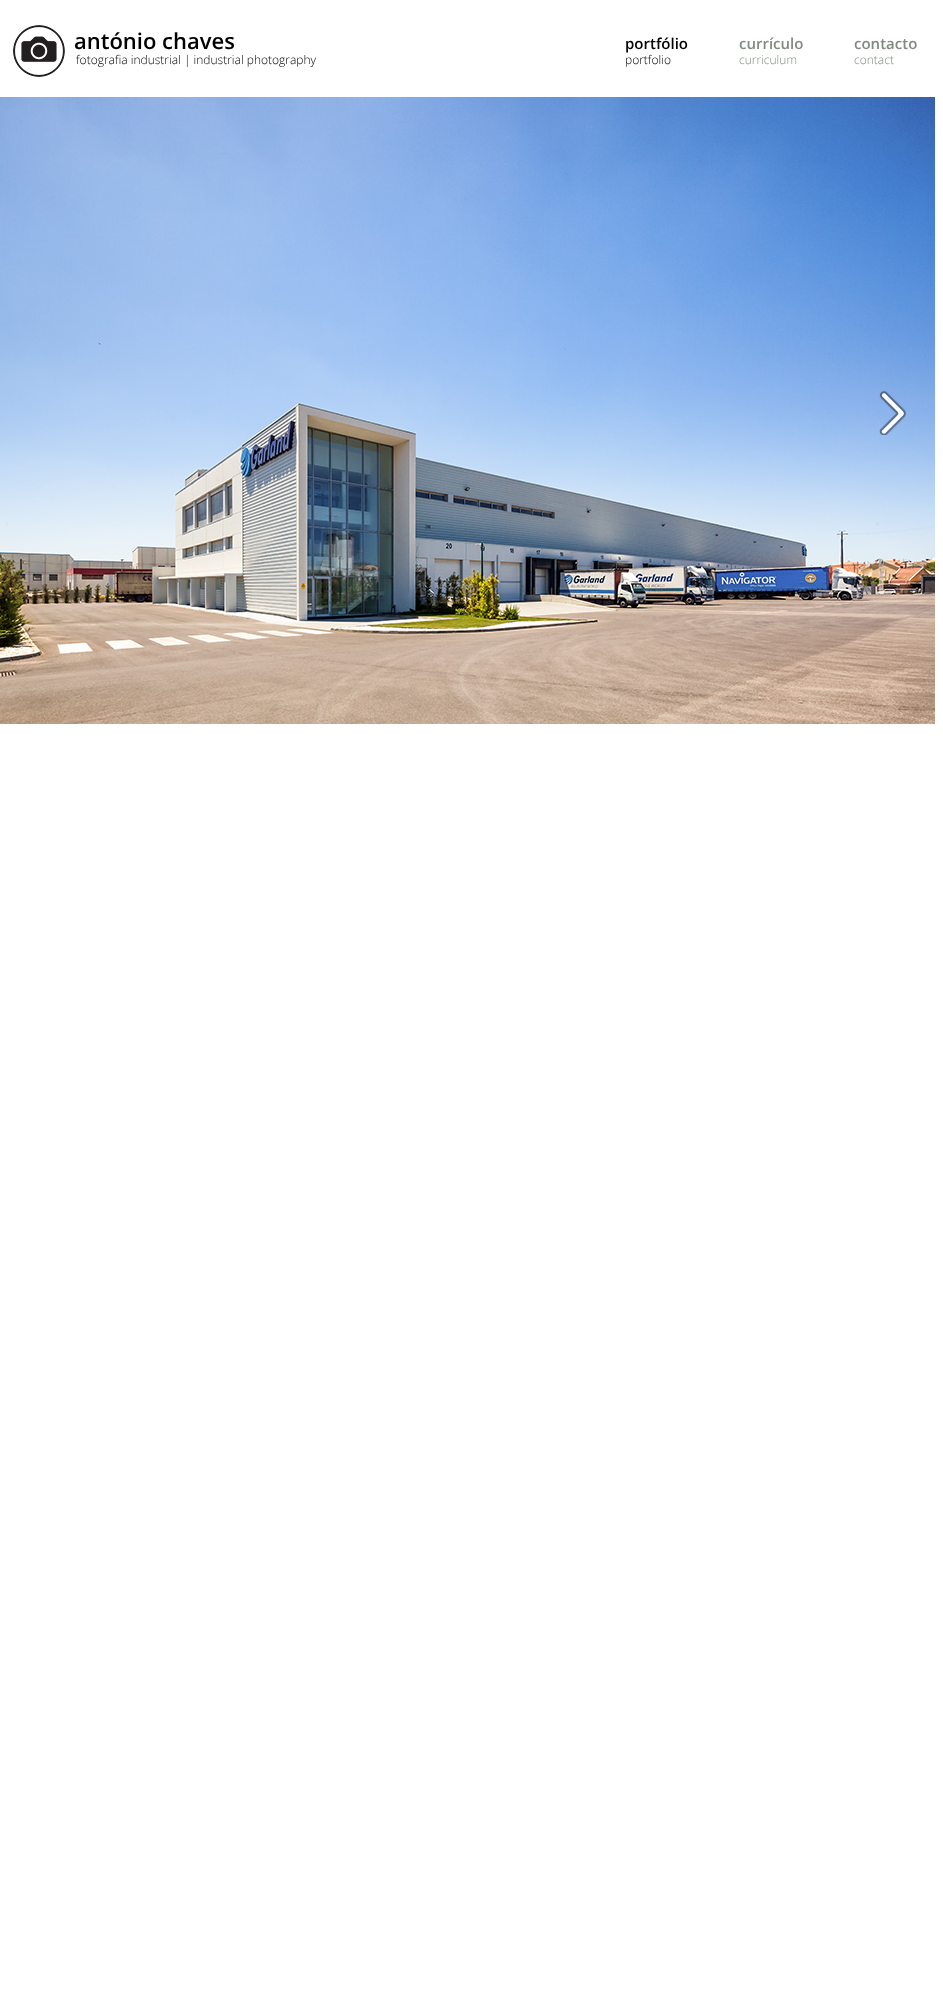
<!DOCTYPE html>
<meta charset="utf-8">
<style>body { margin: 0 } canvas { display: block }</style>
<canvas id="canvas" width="943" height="2016"></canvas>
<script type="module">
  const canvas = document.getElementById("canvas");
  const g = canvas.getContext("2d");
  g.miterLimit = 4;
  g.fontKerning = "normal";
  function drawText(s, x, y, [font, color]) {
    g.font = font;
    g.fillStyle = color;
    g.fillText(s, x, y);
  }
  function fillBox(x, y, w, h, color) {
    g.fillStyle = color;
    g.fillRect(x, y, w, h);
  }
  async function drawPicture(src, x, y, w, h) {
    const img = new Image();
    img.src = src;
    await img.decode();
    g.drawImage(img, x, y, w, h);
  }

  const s1 = ["600 22px Open Sans", "#000000"];
  const s2 = ["600 15px Open Sans", "#000000"];
  const s3 = ["300 12px Open Sans", "#000000"];
  const s4 = ["600 15px Open Sans", "#808A80"];
  const s5 = ["300 12px Open Sans", "#808A80"];

  fillBox(0, 0, 943, 2016, "#FFFFFF");
  await drawPicture("pic1.png", 13, 25, 52, 52);
  drawText("antónio chaves", 74, 49, s1);
  drawText("portfólio", 625, 49, s2);
  drawText("portfolio", 625, 64, s3);
  drawText("currículo", 739, 49, s4);
  drawText("curriculum", 739, 64, s5);
  drawText("contacto", 854, 49, s4);
  drawText("contact", 854, 64, s5);
  drawText("fotografia industrial | industrial photography", 76, 64, s3);
  await drawPicture("pic2.png", 0, 97, 935, 627);
  await drawPicture("pic3.png", 879, 391, 27, 44);
</script>
